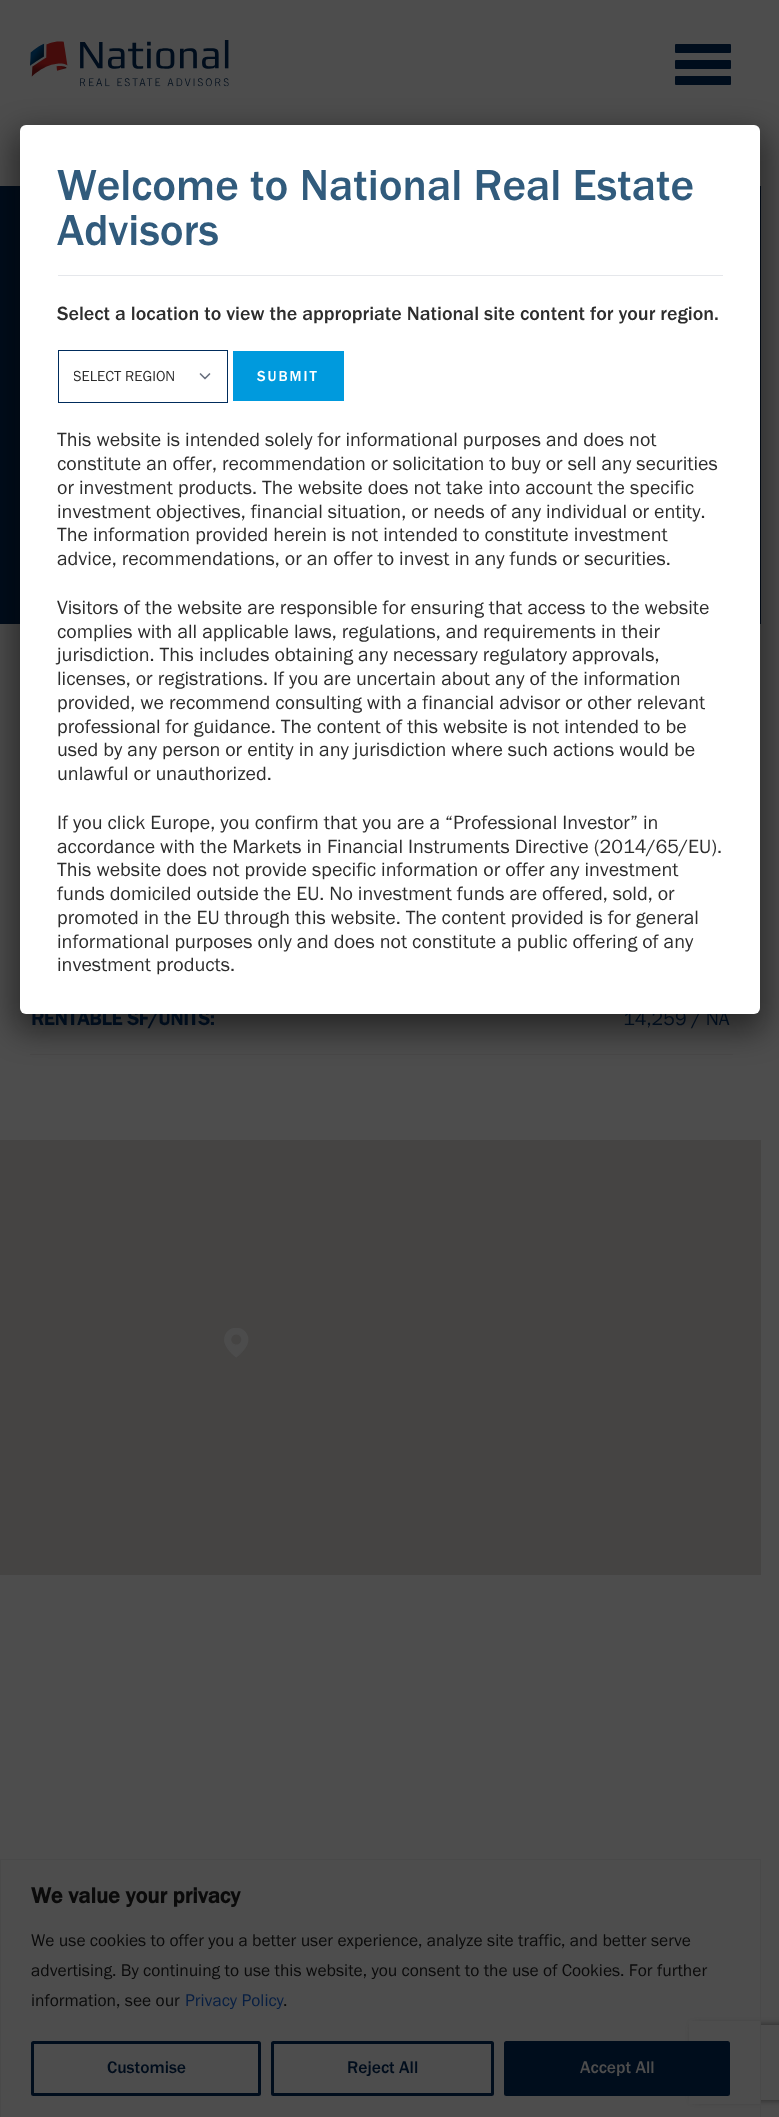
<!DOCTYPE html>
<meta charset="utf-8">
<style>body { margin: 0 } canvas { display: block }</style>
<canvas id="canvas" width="779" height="2117"></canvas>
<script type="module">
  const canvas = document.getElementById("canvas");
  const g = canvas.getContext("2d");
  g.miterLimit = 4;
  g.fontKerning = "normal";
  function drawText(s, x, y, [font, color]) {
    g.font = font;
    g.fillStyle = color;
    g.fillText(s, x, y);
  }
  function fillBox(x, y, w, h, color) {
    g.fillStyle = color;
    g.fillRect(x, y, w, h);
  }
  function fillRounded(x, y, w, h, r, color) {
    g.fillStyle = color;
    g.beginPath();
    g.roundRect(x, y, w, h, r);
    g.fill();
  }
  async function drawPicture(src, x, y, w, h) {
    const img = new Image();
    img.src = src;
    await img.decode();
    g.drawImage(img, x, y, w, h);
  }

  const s1 = ["bold 20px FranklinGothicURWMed", "#000D1C"];
  const s2 = ["20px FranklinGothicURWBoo", "#000D1C"];
  const s3 = ["45px FranklinGothicURWMed", "#315B7C"];
  const s4 = ["20px FranklinGothicURWMed", "#2D2D2D"];
  const s5 = ["15px FranklinGothicURWBoo", "#2D2D2D"];
  const s6 = ["15px FranklinGothicURWMed", "#FFFFFF"];
  const s7 = ["20px FranklinGothicURWBoo", "#2D2D2D"];
  const s8 = ["bold 22.5px FranklinGothicURWMed", "#0A0A0A"];
  const s9 = ["17.5px FranklinGothicURWBoo", "#0A0A0A"];
  const s10 = ["17.5px FranklinGothicURWBoo", "#071E42"];
  const s11 = ["17.5px FranklinGothicURWMed", "#000D1C"];
  const s12 = ["17.5px FranklinGothicURWMed", "#4D4D4D"];

  fillBox(0, 0, 779, 2117, "#4D4D4D");
  await drawPicture("pic1.png", 30, 40, 199, 47);
  fillRounded(675, 60, 56, 9, 1, "#000D1C");
  fillRounded(675, 44, 56, 9, 1, "#000D1C");
  fillRounded(675, 76, 56, 9, 1, "#000D1C");
  fillBox(0, 186, 761, 438, "#000D1C");
  fillBox(30, 1054, 703, 1, "#494848");
  g.fillStyle = "rgba(2, 2, 2, 0.5)";
  g.filter = "blur(15.5px)";
  g.beginPath();
  g.roundRect(15, 133, 750, 898, 11);
  g.fill();
  g.filter = "none";
  drawText("RENTABLE SF/UNITS:", 31, 1025, s1);
  drawText("14,259 / NA", 623, 1025, s2);
  fillRounded(20, 125, 740, 889, 6, "#FFFFFF");
  drawText("Welcome to National Real Estate", 57, 200, s3);
  drawText("Advisors", 57, 245, s3);
  fillBox(58, 275, 665, 1, "#E5E7EB");
  drawText("Select a location to view the appropriate National site content for your region.", 57, 320, s4);
  g.beginPath();
  g.moveTo(200.5, 374);
  g.lineTo(205, 378.5);
  g.lineTo(209.5, 374);
  g.strokeStyle = "#6B7280";
  g.lineWidth = 1.7;
  g.lineCap = "round";
  g.lineJoin = "round";
  g.stroke();
  g.strokeStyle = "#002C5C";
  g.lineWidth = 1;
  g.lineJoin = "miter";
  g.strokeRect(58.5, 350.5, 169, 52);
  g.save();
  g.beginPath();
  g.rect(74, 366, 102, 20);
  g.clip();
  drawText("SELECT REGION", 73, 381, s5);
  g.restore();
  fillBox(233, 351, 111, 50, "#009ADD");
  g.letterSpacing = "2px";
  drawText("SUBMIT", 257, 381, s6);
  g.letterSpacing = "0px";
  drawText("This website is intended solely for informational purposes and does not", 57, 446, s7);
  drawText("constitute an offer, recommendation or solicitation to buy or sell any securities", 57, 470, s7);
  drawText("or investment products. The website does not take into account the specific", 57, 494, s7);
  drawText("investment objectives, financial situation, or needs of any individual or entity.", 57, 518, s7);
  drawText("The information provided herein is not intended to constitute investment", 57, 541, s7);
  drawText("advice, recommendations, or an offer to invest in any funds or securities.", 57, 565, s7);
  drawText("Visitors of the website are responsible for ensuring that access to the website", 57, 614, s7);
  drawText("complies with all applicable laws, regulations, and requirements in their", 57, 638, s7);
  drawText("jurisdiction. This includes obtaining any necessary regulatory approvals,", 57, 661, s7);
  drawText("licenses, or registrations. If you are uncertain about any of the information", 57, 685, s7);
  drawText("provided, we recommend consulting with a financial advisor or other relevant", 57, 709, s7);
  drawText("professional for guidance. The content of this website is not intended to be", 57, 733, s7);
  drawText("used by any person or entity in any jurisdiction where such actions would be", 57, 756, s7);
  drawText("unlawful or unauthorized.", 57, 780, s7);
  drawText("If you click Europe, you confirm that you are a “Professional Investor” in", 57, 829, s7);
  drawText("accordance with the Markets in Financial Instruments Directive (2014/65/EU).", 57, 853, s7);
  drawText("This website does not provide specific information or offer any investment", 57, 876, s7);
  drawText("funds domiciled outside the EU. No investment funds are offered, sold, or", 57, 900, s7);
  drawText("promoted in the EU through this website. The content provided is for general", 57, 924, s7);
  drawText("informational purposes only and does not constitute a public offering of any", 57, 948, s7);
  drawText("investment products.", 57, 971, s7);
  fillBox(0, 1140, 761, 435, "#454443");
  await drawPicture("pic2.png", 224, 1328, 25, 30);
  g.save();
  g.beginPath();
  g.moveTo(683, 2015);
  g.lineTo(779, 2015);
  g.lineTo(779, 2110);
  g.lineTo(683, 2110);
  g.closePath();
  g.moveTo(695.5, 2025);
  g.lineTo(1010.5, 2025);
  g.bezierCurveTo(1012, 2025, 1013, 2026, 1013, 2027.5);
  g.lineTo(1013, 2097.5);
  g.bezierCurveTo(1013, 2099, 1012, 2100, 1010.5, 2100);
  g.lineTo(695.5, 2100);
  g.bezierCurveTo(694, 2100, 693, 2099, 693, 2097.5);
  g.lineTo(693, 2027.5);
  g.bezierCurveTo(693, 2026, 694, 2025, 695.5, 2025);
  g.closePath();
  g.clip("evenodd");
  g.fillStyle = "#262626";
  g.filter = "blur(3px)";
  g.beginPath();
  g.roundRect(693, 2025, 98, 75, 2.5);
  g.fill();
  g.filter = "none";
  g.restore();
  fillBox(689, 2021, 71, 83, "#4D4D4D");
  g.strokeStyle = "#494949";
  g.strokeRect(0.5, 1859.5, 760, 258);
  drawText("We value your privacy", 31, 1903, s8);
  drawText("We use cookies to offer you a better user experience, analyze site traffic, and better serve", 31, 1946, s9);
  drawText("advertising. By continuing to use this website, you consent to the use of Cookies. For further", 31, 1976, s9);
  drawText("information, see our", 31, 2006, s9);
  drawText("Privacy Policy", 185, 2006, s10);
  drawText(".", 283, 2006, s9);
  g.beginPath();
  g.roundRect(32.5, 2042.5, 227, 52, 1);
  g.strokeStyle = "#000D1C";
  g.lineWidth = 3;
  g.stroke();
  drawText("Customise", 107, 2073, s11);
  g.beginPath();
  g.roundRect(272.5, 2042.5, 220, 52, 1);
  g.stroke();
  drawText("Reject All", 347, 2073, s11);
  g.beginPath();
  g.roundRect(505.5, 2042.5, 223, 52, 1);
  g.fill();
  g.stroke();
  drawText("Accept All", 580, 2073, s12);
</script>
